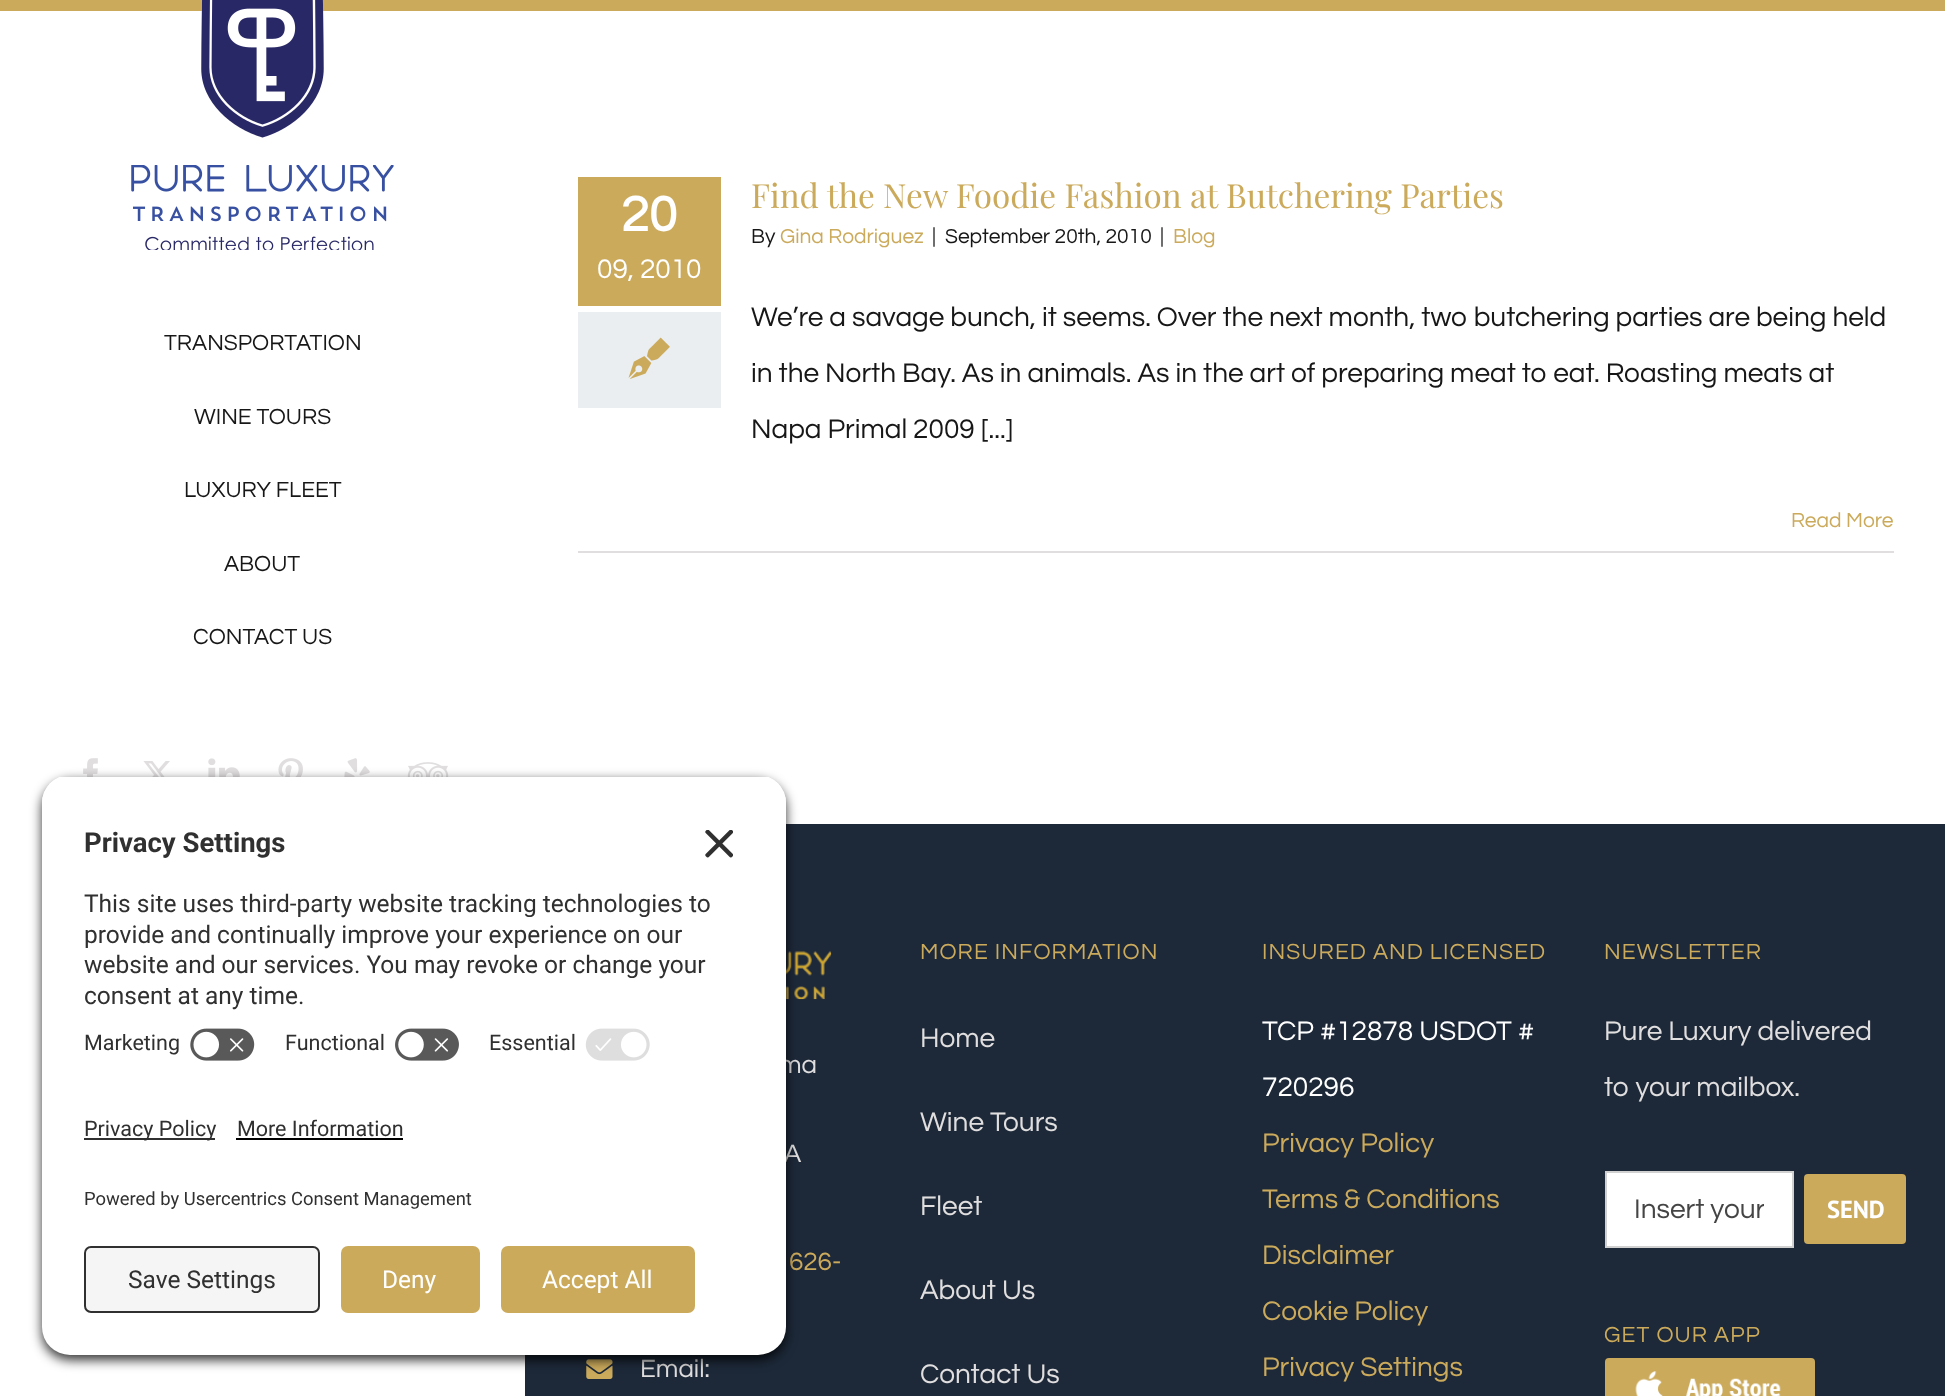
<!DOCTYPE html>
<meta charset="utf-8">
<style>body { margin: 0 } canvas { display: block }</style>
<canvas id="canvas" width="1945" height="1396"></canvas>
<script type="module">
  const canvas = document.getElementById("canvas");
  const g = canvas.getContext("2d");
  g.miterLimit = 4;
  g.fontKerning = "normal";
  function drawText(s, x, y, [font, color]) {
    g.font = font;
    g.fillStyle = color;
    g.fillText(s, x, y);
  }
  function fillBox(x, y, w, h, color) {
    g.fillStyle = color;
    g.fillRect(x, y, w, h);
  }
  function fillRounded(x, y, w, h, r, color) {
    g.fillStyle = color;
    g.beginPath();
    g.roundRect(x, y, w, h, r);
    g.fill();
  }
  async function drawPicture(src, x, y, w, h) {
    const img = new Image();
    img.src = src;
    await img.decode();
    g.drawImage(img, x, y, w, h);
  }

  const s1 = ["22.75px Questrial", "#171717"];
  const s2 = ["bold 51px Questrial", "#FFFFFF"];
  const s3 = ["28px Questrial", "#FFFFFF"];
  const s4 = ["33.25px Playfair Display", "#CBAA5C"];
  const s5 = ["21px Questrial", "#171717"];
  const s6 = ["21px Questrial", "#CBAA5C"];
  const s7 = ["28px Questrial", "#171717"];
  const s8 = ["26px Questrial", "#E0DEDE"];
  const s9 = ["26px Questrial", "#CBAA5C"];
  const s10 = ["22.75px Questrial", "#CBAA5C"];
  const s11 = ["28px Questrial", "#E0DEDE"];
  const s12 = ["28px Questrial", "#CBAA5C"];
  const s13 = ["28px Questrial", "#454545"];
  const s14 = ["bold 24.5px PT Sans", "#FFFFFF"];
  const s15 = ["bold 27.5px Roboto", "#303030"];
  const s16 = ["24.5px Roboto", "#303030"];
  const s17 = ["21.5px Roboto", "#303030"];
  const s18 = ["18.4px Roboto", "#303030"];
  const s19 = ["24.5px Roboto", "#FFFFFF"];

  fillBox(0, 0, 1945, 1396, "#FFFFFF");
  fillBox(0, 0, 1945, 11, "#CBAA5C");
  await drawPicture("pic1.png", 201, 0, 123, 138);
  await drawPicture("pic2.png", 131, 165, 263, 85);
  drawText("TRANSPORTATION", 164, 350, s1);
  drawText("WINE TOURS", 194, 424, s1);
  drawText("LUXURY FLEET", 184, 497, s1);
  drawText("ABOUT", 224, 571, s1);
  drawText("CONTACT US", 193, 644, s1);
  await drawPicture("pic3.png", 83, 758, 15, 19);
  await drawPicture("pic4.png", 143, 761, 27, 16);
  await drawPicture("pic5.png", 208, 758, 32, 19);
  await drawPicture("pic6.png", 278, 758, 25, 19);
  await drawPicture("pic7.png", 344, 758, 26, 19);
  await drawPicture("pic8.png", 407, 762, 42, 15);
  fillBox(578, 177, 143, 129, "#CBAA5C");
  drawText("20", 621, 231, s2);
  drawText("09, 2010", 597, 278, s3);
  fillBox(578, 312, 143, 96, "#EBEEF1");
  await drawPicture("pic9.png", 628, 337, 42, 42);
  drawText("Find the New Foodie Fashion at Butchering Parties", 751, 208, s4);
  drawText("By", 751, 243, s5);
  drawText("Gina Rodriguez", 780, 243, s6);
  drawText("|", 932, 243, s5);
  drawText("September 20th, 2010", 945, 243, s5);
  drawText("|", 1160, 243, s5);
  drawText("Blog", 1173, 243, s6);
  drawText("We’re a savage bunch, it seems. Over the next month, two butchering parties are being held", 751, 326, s7);
  drawText("in the North Bay. As in animals. As in the art of preparing meat to eat. Roasting meats at", 751, 382, s7);
  drawText("Napa Primal 2009 [...]", 751, 438, s7);
  fillBox(578, 551, 1316, 2, "#E0DEDE");
  drawText("Read More", 1791, 527, s6);
  fillBox(525, 824, 1420, 572, "#1D2939");
  await drawPicture("pic10.png", 786, 950, 46, 50);
  drawText("ma", 779, 1073, s8);
  drawText("A", 784, 1162, s8);
  drawText("626-", 789, 1270, s9);
  await drawPicture("pic11.png", 586, 1359, 27, 20);
  drawText("Email:", 640, 1377, s8);
  g.letterSpacing = "1.1px";
  drawText("MORE INFORMATION", 920, 959, s10);
  g.letterSpacing = "0px";
  drawText("Home", 920, 1047, s11);
  drawText("Wine Tours", 920, 1131, s11);
  drawText("Fleet", 920, 1215, s11);
  drawText("About Us", 920, 1299, s11);
  drawText("Contact Us", 920, 1383, s11);
  g.letterSpacing = "1.1px";
  drawText("INSURED AND LICENSED", 1262, 959, s10);
  g.letterSpacing = "0px";
  drawText("TCP #12878 USDOT #", 1262, 1040, s3);
  drawText("720296", 1262, 1096, s3);
  drawText("Privacy Policy", 1262, 1152, s12);
  drawText("Terms & Conditions", 1262, 1208, s12);
  drawText("Disclaimer", 1262, 1264, s12);
  drawText("Cookie Policy", 1262, 1320, s12);
  drawText("Privacy Settings", 1262, 1376, s12);
  g.letterSpacing = "1.1px";
  drawText("NEWSLETTER", 1604, 959, s10);
  g.letterSpacing = "0px";
  drawText("Pure Luxury delivered", 1604, 1040, s11);
  drawText("to your mailbox.", 1604, 1096, s11);
  g.fillStyle = "#FFFFFF";
  g.beginPath();
  g.rect(1606, 1172, 187, 75);
  g.fill();
  g.strokeStyle = "#D1D1D1";
  g.lineWidth = 2;
  g.stroke();
  g.save();
  g.beginPath();
  g.rect(1635, 1195, 129, 28);
  g.clip();
  drawText("Insert your", 1634, 1218, s13);
  g.restore();
  fillRounded(1804, 1174, 102, 70, 4, "#CBAA5C");
  drawText("SEND", 1827, 1218, s14);
  g.letterSpacing = "1.1px";
  drawText("GET OUR APP", 1604, 1342, s10);
  fillRounded(1605, 1358, 210, 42, 4, "#CBAA5C");
  await drawPicture("pic12.png", 1635, 1371, 146, 25);
  g.fillStyle = "rgba(0, 0, 0, 0.8)";
  g.filter = "blur(6px)";
  g.beginPath();
  g.roundRect(42, 781, 744, 579, 28);
  g.fill();
  g.filter = "none";
  g.save();
  g.beginPath();
  g.roundRect(42, 775, 744, 314, [28, 28, 0, 0]);
  g.clip();
  fillBox(42, 777, 744, 312, "#FFFFFF");
  fillBox(42, 777, 744, 242, "#FFFFFF");
  g.restore();
  g.letterSpacing = "0px";
  drawText("Privacy Settings", 84, 852, s15);
  await drawPicture("pic13.png", 705, 830, 28, 28);
  drawText("This site uses third-party website tracking technologies to", 84, 912, s16);
  drawText("provide and continually improve your experience on our", 84, 943, s16);
  drawText("website and our services. You may revoke or change your", 84, 973, s16);
  drawText("consent at any time.", 84, 1004, s16);
  drawText("Marketing", 84, 1050, s17);
  await drawPicture("pic14.png", 190, 1028, 65, 33);
  drawText("Functional", 285, 1050, s17);
  await drawPicture("pic15.png", 395, 1028, 64, 33);
  drawText("Essential", 489, 1050, s17);
  await drawPicture("pic16.png", 585, 1028, 65, 33);
  g.fillStyle = "#FFFFFF";
  g.beginPath();
  g.roundRect(42, 1089, 744, 266, [0, 0, 28, 28]);
  g.fill();
  fillBox(84, 1138, 131, 2, "#303030");
  drawText("Privacy Policy", 84, 1136, s17);
  drawText("More Information", 237, 1136, s17);
  fillBox(236, 1138, 167, 2, "#000000");
  drawText("Powered by Usercentrics Consent Management", 84, 1205, s18);
  g.fillStyle = "#F5F5F5";
  g.beginPath();
  g.roundRect(85, 1247, 234, 65, 6);
  g.fill();
  g.strokeStyle = "#303030";
  g.stroke();
  drawText("Save Settings", 128, 1288, s16);
  fillRounded(341, 1246, 139, 67, 7, "#CBAA5C");
  drawText("Deny", 382, 1288, s19);
  fillRounded(501, 1246, 194, 67, 7, "#CBAA5C");
  drawText("Accept All", 542, 1288, s19);
</script>
